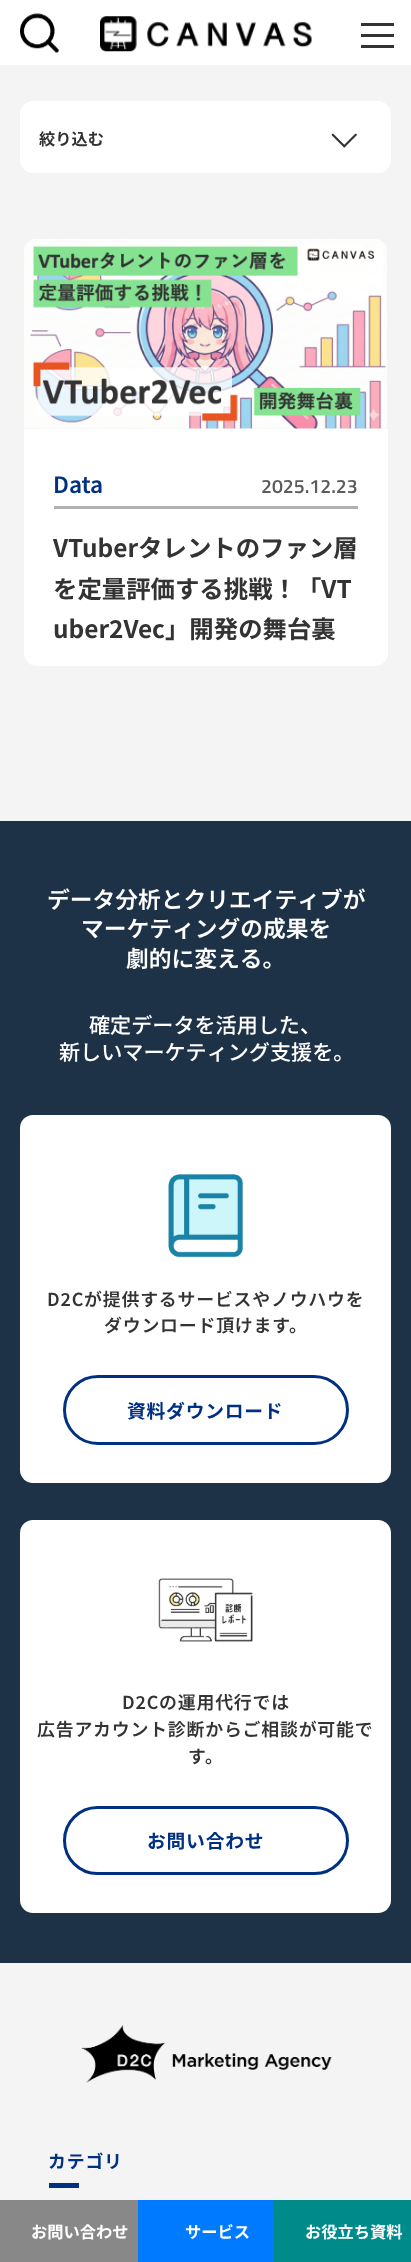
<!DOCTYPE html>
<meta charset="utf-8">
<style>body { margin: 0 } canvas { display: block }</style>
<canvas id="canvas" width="411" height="2262"></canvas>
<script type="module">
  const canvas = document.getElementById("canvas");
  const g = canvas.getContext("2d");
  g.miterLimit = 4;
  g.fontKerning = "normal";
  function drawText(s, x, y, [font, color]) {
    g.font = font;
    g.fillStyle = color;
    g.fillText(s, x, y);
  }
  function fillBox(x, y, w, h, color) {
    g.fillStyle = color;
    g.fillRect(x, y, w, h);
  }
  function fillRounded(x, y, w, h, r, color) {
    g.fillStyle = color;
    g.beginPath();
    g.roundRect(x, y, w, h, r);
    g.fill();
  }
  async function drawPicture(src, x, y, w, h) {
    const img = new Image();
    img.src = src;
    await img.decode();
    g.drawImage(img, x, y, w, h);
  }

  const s1 = ["bold 16.25px Noto Sans JP", "#333333"];
  const s2 = ["600 22.5px Noto Sans JP", "#003082"];
  const s3 = ["600 19.5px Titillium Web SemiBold", "#5C5C5C"];
  const s4 = ["bold 24.4px Noto Sans JP", "#333333"];
  const s5 = ["600 22.75px Noto Sans JP", "#FFFFFF"];
  const s6 = ["500 21.1px Noto Sans JP", "#FFFFFF"];
  const s7 = ["600 17.9px Noto Sans JP", "#333333"];
  const s8 = ["bold 18.75px Noto Sans JP", "#003082"];
  const s9 = ["bold 17.9px Noto Sans JP", "#003082"];
  const s10 = ["bold 16.25px Noto Sans JP", "#FFFFFF"];

  fillBox(0, 0, 411, 2262, "#F4F4F4");
  fillRounded(20, 101, 371, 72, 13, "#FFFFFF");
  drawText("絞り込む", 39, 145, s1);
  g.beginPath();
  g.moveTo(356.5, 134);
  g.bezierCurveTo(357, 134.5, 357, 135, 356.5, 135.5);
  g.lineTo(345, 147);
  g.bezierCurveTo(344.5, 147.5, 344, 147.5, 343.5, 147);
  g.bezierCurveTo(343, 146.5, 343, 146, 343.5, 145.5);
  g.lineTo(355, 134);
  g.bezierCurveTo(355.5, 133.5, 356, 133.5, 356.5, 134);
  g.closePath();
  g.fill();
  g.beginPath();
  g.moveTo(332, 134);
  g.bezierCurveTo(332.5, 133.5, 333, 133.5, 333.5, 134);
  g.lineTo(345, 145.5);
  g.bezierCurveTo(345.5, 146, 345.5, 146.5, 345, 147);
  g.bezierCurveTo(344.5, 147.5, 344, 147.5, 343.5, 147);
  g.lineTo(332, 135.5);
  g.bezierCurveTo(331.5, 135, 331.5, 134.5, 332, 134);
  g.closePath();
  g.fill();
  await drawPicture("pic1.png", 24, 239, 363, 190);
  g.fillStyle = "#FFFFFF";
  g.beginPath();
  g.roundRect(24, 429, 364, 237, [0, 0, 13, 13]);
  g.fill();
  drawText("Data", 53, 493, s2);
  drawText("2025.12.23", 261, 493, s3);
  fillBox(54, 506, 304, 3, "#B3B0B0");
  drawText("VTuberタレントのファン層", 53, 557, s4);
  drawText("を定量評価する挑戦！「VT", 53, 598, s4);
  drawText("uber2Vec」開発の舞台裏", 53, 638, s4);
  fillBox(0, 821, 411, 1142, "#1E3247");
  drawText("データ分析とクリエイティブが", 47, 908, s5);
  drawText("マーケティングの成果を", 81, 937, s5);
  drawText("劇的に変える。", 126, 967, s5);
  drawText("確定データを活用した、", 89, 1033, s6);
  drawText("新しいマーケティング支援を。", 59, 1060, s6);
  fillRounded(20, 1115, 371, 368, 13, "#FFFFFF");
  await drawPicture("pic2.png", 168, 1174, 75, 84);
  g.letterSpacing = "0.8px";
  drawText("D2Cが提供するサービスやノウハウを", 47, 1306, s7);
  drawText("ダウンロード頂けます。", 104, 1332, s7);
  g.beginPath();
  g.roundRect(64.5, 1376.5, 283, 67, 33.5);
  g.strokeStyle = "#003082";
  g.lineWidth = 3;
  g.stroke();
  drawText("資料ダウンロード", 127, 1418, s8);
  fillRounded(20, 1520, 371, 393, 13, "#FFFFFF");
  await drawPicture("pic3.png", 158, 1578, 95, 64);
  drawText("D2Cの運用代行では", 122, 1709, s7);
  drawText("広告アカウント診断からご相談が可能で", 37, 1736, s7);
  drawText("す。", 188, 1763, s7);
  g.beginPath();
  g.roundRect(64.5, 1807.5, 283, 66, 33);
  g.stroke();
  drawText("お問い合わせ", 147, 1848, s8);
  await drawPicture("pic4.png", 81, 2025, 251, 58);
  drawText("カテゴリ", 48, 2168, s9);
  fillBox(49, 2183, 30, 5, "#003082");
  fillBox(0, 0, 411, 65, "#FFFFFF");
  await drawPicture("pic5.png", 20, 13, 39, 41);
  await drawPicture("pic6.png", 100, 16, 212, 36);
  fillBox(361, 34, 33, 3, "#333333");
  fillBox(361, 23, 33, 3, "#333333");
  fillBox(361, 45, 33, 3, "#333333");
  fillBox(0, 2200, 138, 62, "#888888");
  g.letterSpacing = "0px";
  drawText("お問い合わせ", 31, 2238, s10);
  fillBox(138, 2200, 136, 62, "#007BFF");
  drawText("サービス", 185, 2238, s10);
  fillBox(274, 2200, 137, 62, "#008B8B");
  drawText("お役立ち資料", 305, 2238, s10);
</script>
